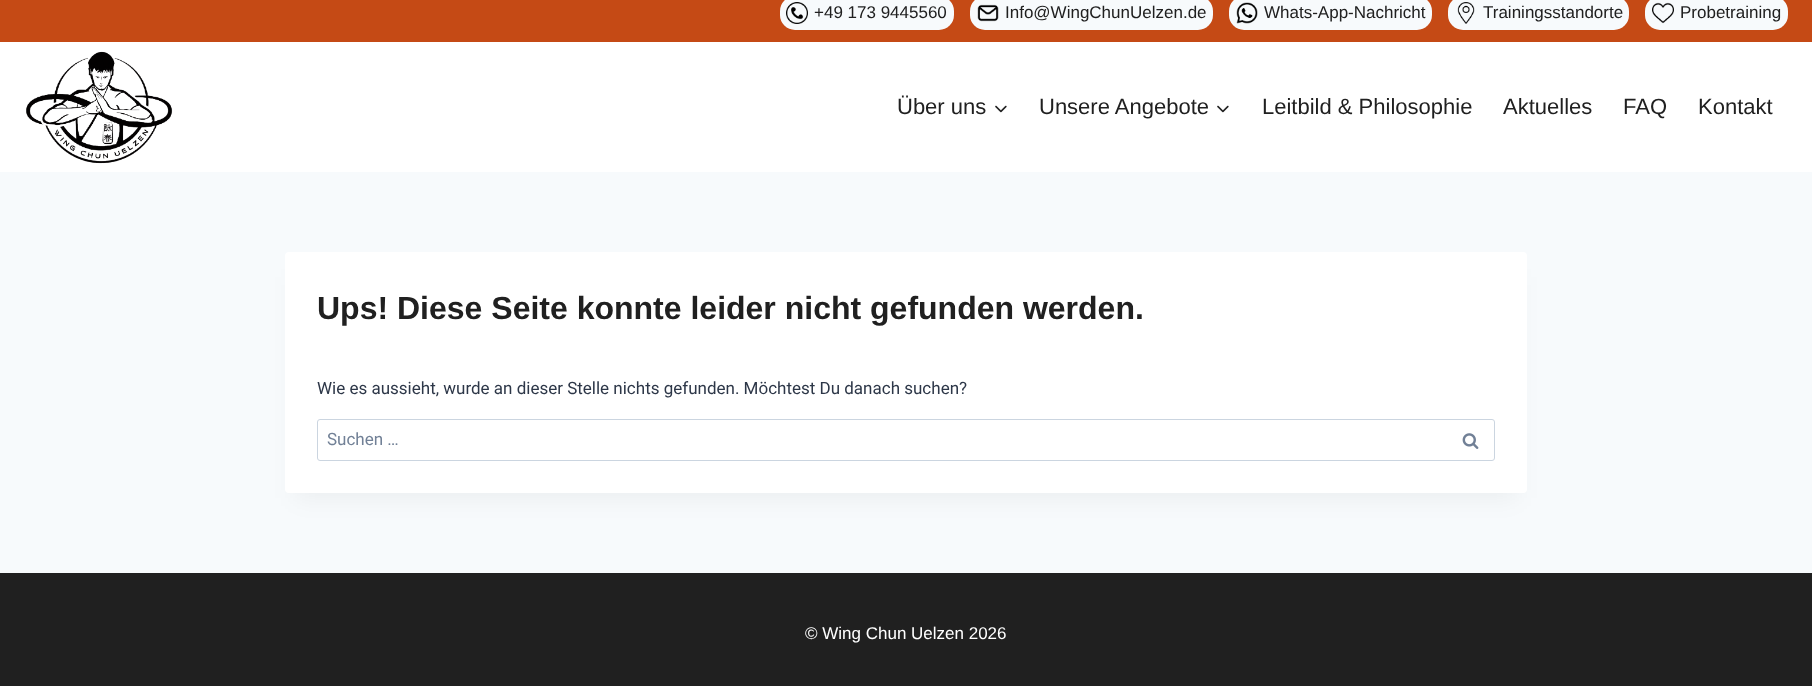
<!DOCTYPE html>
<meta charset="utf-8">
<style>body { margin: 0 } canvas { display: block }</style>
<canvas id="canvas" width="1812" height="686"></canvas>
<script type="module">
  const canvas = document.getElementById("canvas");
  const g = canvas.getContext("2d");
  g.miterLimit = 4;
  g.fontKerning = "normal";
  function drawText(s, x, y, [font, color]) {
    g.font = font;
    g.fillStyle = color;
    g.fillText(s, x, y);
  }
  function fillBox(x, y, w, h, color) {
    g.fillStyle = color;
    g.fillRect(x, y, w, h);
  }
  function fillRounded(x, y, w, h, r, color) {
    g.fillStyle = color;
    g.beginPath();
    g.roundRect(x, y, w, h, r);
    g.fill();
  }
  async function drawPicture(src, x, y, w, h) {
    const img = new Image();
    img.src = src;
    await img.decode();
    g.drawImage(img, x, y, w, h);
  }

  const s1 = ["17px Liberation Sans", "#202020"];
  const s2 = ["22px Liberation Sans", "#202020"];
  const s3 = ["bold 32px Liberation Sans", "#202020"];
  const s4 = ["17px Roboto", "#2D3748"];
  const s5 = ["17px Roboto", "#718096"];
  const s6 = ["17px Liberation Sans", "#FFFFFF"];

  fillBox(0, 0, 1812, 686, "#F7FAFC");
  fillBox(0, 42, 1812, 130, "#FFFFFF");
  fillBox(0, 0, 1812, 42, "#C54A15");
  fillRounded(780, -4, 174, 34, 15, "#F7FAFC");
  await drawPicture("pic1.png", 786, 2, 22, 22);
  drawText("+49 173 9445560", 814, 18, s1);
  fillRounded(970, -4, 243, 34, 15, "#F7FAFC");
  await drawPicture("pic2.png", 977, 4, 22, 18);
  drawText("Info@WingChunUelzen.de", 1005, 18, s1);
  fillRounded(1229, -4, 203, 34, 15, "#F7FAFC");
  await drawPicture("pic3.png", 1236, 2, 22, 22);
  drawText("Whats-App-Nachricht", 1264, 18, s1);
  fillRounded(1448, -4, 181, 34, 15, "#F7FAFC");
  await drawPicture("pic4.png", 1457, 2, 18, 22);
  drawText("Trainingsstandorte", 1483, 18, s1);
  fillRounded(1645, -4, 143, 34, 15, "#F7FAFC");
  await drawPicture("pic5.png", 1652, 2, 22, 22);
  drawText("Probetraining", 1680, 18, s1);
  await drawPicture("pic6.png", 26, 51, 147, 113);
  drawText("Über uns", 897, 114, s2);
  await drawPicture("pic7.png", 995, 105, 12, 8);
  drawText("Unsere Angebote", 1039, 114, s2);
  await drawPicture("pic7.png", 1217, 105, 12, 8);
  drawText("Leitbild & Philosophie", 1262, 114, s2);
  drawText("Aktuelles", 1503, 114, s2);
  drawText("FAQ", 1623, 114, s2);
  drawText("Kontakt", 1698, 114, s2);
  g.fillStyle = "rgba(0, 0, 0, 0.05)";
  g.filter = "blur(12.5px)";
  g.beginPath();
  g.rect(295, 277, 1222, 221);
  g.fill();
  g.filter = "none";
  fillRounded(285, 252, 1242, 241, 4, "#FFFFFF");
  drawText("Ups! Diese Seite konnte leider nicht gefunden werden.", 317, 319, s3);
  drawText("Wie es aussieht, wurde an dieser Stelle nichts gefunden. Möchtest Du danach suchen?", 317, 394, s4);
  g.beginPath();
  g.roundRect(317.5, 419.5, 1177, 41, 2.5);
  g.strokeStyle = "#CBD5E0";
  g.stroke();
  drawText("Suchen …", 327, 445, s5);
  await drawPicture("pic8.png", 1462, 433, 17, 16);
  fillBox(0, 573, 1812, 113, "#202020");
  drawText("© Wing Chun Uelzen 2026", 805, 639, s6);
</script>
